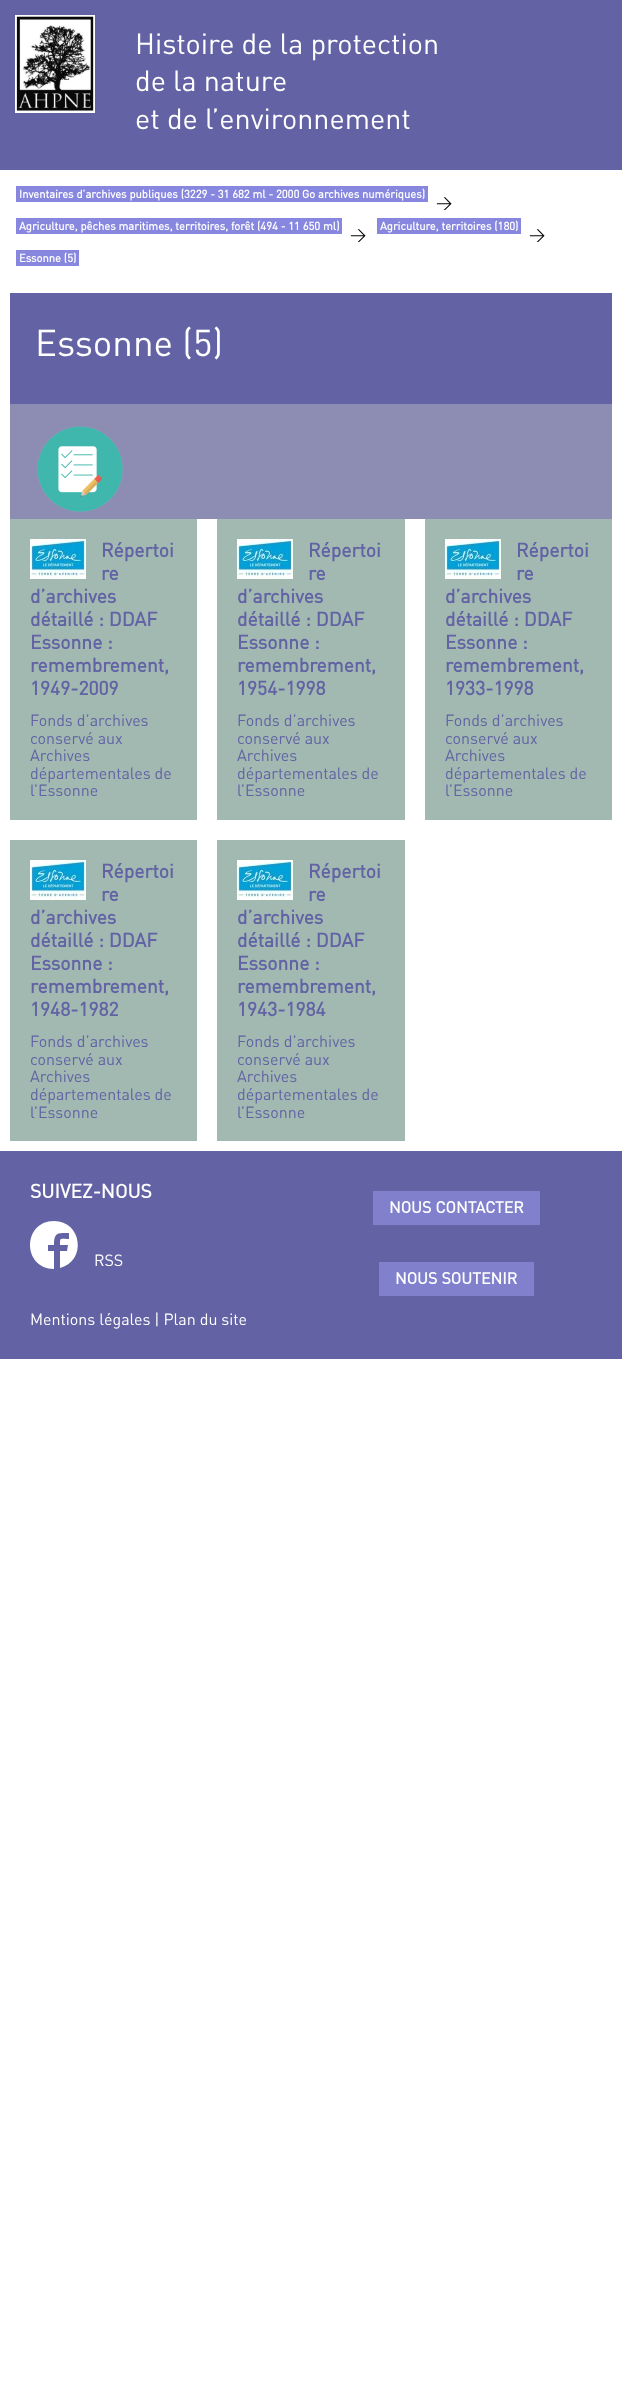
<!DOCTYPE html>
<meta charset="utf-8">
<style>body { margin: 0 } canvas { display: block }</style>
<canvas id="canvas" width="622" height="2403"></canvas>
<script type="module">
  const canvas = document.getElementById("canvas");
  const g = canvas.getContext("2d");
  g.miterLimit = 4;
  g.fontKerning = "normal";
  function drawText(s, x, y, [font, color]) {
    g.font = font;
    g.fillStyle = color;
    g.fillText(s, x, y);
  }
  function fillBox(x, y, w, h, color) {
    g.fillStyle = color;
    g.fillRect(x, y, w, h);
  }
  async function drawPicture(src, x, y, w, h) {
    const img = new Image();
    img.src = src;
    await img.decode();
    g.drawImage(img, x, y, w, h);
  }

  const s1 = ["28.75px DIN", "#FFFFFF"];
  const s2 = ["bold 11.2px DIN", "#FFFFFF"];
  const s3 = ["16px DIN", "#000000"];
  const s4 = ["36.75px DIN", "#FFFFFF"];
  const s5 = ["bold 19.25px DIN", "#6262A4"];
  const s6 = ["16px DIN", "#6262A4"];
  const s7 = ["bold 19.25px DIN", "#FFFFFF"];
  const s8 = ["16px DIN", "#FFFFFF"];
  const s9 = ["bold 16px DIN", "#FFFFFF"];

  fillBox(0, 0, 622, 2403, "#FFFFFF");
  fillBox(0, 0, 622, 170, "#6262A4");
  await drawPicture("pic1.png", 15, 15, 80, 98);
  drawText("Histoire de la protection", 135, 54, s1);
  drawText("de la nature", 135, 91, s1);
  drawText("et de l’environnement", 135, 129, s1);
  fillBox(16, 186, 412, 16, "#8787E0");
  drawText("Inventaires d’archives publiques (3229 - 31 682 ml - 2000 Go archives numériques)", 19, 198, s2);
  drawText(">", 436, 208, s3);
  fillBox(16, 218, 326, 16, "#8787E0");
  drawText("Agriculture, pêches maritimes, territoires, forêt (494 - 11 650 ml)", 19, 230, s2);
  fillBox(377, 218, 144, 16, "#8787E0");
  drawText("Agriculture, territoires (180)", 380, 230, s2);
  drawText(">", 350, 240, s3);
  drawText(">", 529, 240, s3);
  fillBox(16, 250, 63, 16, "#8787E0");
  drawText("Essonne (5)", 19, 262, s2);
  fillBox(10, 404, 602, 115, "#8D8DB3");
  fillBox(10, 293, 602, 111, "#6262A4");
  drawText("Essonne (5)", 35, 356, s4);
  await drawPicture("pic2.png", 37, 426, 86, 86);
  fillBox(10, 519, 187, 301, "#A2B9B2");
  await drawPicture("pic3.png", 30, 539, 56, 40);
  drawText("Répertoi", 101, 557, s5);
  drawText("re", 101, 580, s5);
  drawText("d’archives", 30, 603, s5);
  drawText("détaillé : DDAF", 30, 626, s5);
  drawText("Essonne :", 30, 649, s5);
  drawText("remembrement,", 30, 672, s5);
  drawText("1949-2009", 30, 695, s5);
  drawText("Fonds d’archives", 30, 726, s6);
  drawText("conservé aux", 30, 744, s6);
  drawText("Archives", 30, 761, s6);
  drawText("départementales de", 30, 779, s6);
  drawText("l’Essonne", 30, 796, s6);
  fillBox(217, 519, 188, 301, "#A2B9B2");
  await drawPicture("pic3.png", 237, 539, 56, 40);
  drawText("Répertoi", 308, 557, s5);
  drawText("re", 308, 580, s5);
  drawText("d’archives", 237, 603, s5);
  drawText("détaillé : DDAF", 237, 626, s5);
  drawText("Essonne :", 237, 649, s5);
  drawText("remembrement,", 237, 672, s5);
  drawText("1954-1998", 237, 695, s5);
  drawText("Fonds d’archives", 237, 726, s6);
  drawText("conservé aux", 237, 744, s6);
  drawText("Archives", 237, 761, s6);
  drawText("départementales de", 237, 779, s6);
  drawText("l’Essonne", 237, 796, s6);
  fillBox(425, 519, 187, 301, "#A2B9B2");
  await drawPicture("pic3.png", 445, 539, 56, 40);
  drawText("Répertoi", 516, 557, s5);
  drawText("re", 516, 580, s5);
  drawText("d’archives", 445, 603, s5);
  drawText("détaillé : DDAF", 445, 626, s5);
  drawText("Essonne :", 445, 649, s5);
  drawText("remembrement,", 445, 672, s5);
  drawText("1933-1998", 445, 695, s5);
  drawText("Fonds d’archives", 445, 726, s6);
  drawText("conservé aux", 445, 744, s6);
  drawText("Archives", 445, 761, s6);
  drawText("départementales de", 445, 779, s6);
  drawText("l’Essonne", 445, 796, s6);
  fillBox(10, 840, 187, 301, "#A2B9B2");
  await drawPicture("pic3.png", 30, 860, 56, 40);
  drawText("Répertoi", 101, 878, s5);
  drawText("re", 101, 901, s5);
  drawText("d’archives", 30, 924, s5);
  drawText("détaillé : DDAF", 30, 947, s5);
  drawText("Essonne :", 30, 970, s5);
  drawText("remembrement,", 30, 993, s5);
  drawText("1948-1982", 30, 1016, s5);
  drawText("Fonds d’archives", 30, 1047, s6);
  drawText("conservé aux", 30, 1065, s6);
  drawText("Archives", 30, 1082, s6);
  drawText("départementales de", 30, 1100, s6);
  drawText("l’Essonne", 30, 1118, s6);
  fillBox(217, 840, 188, 301, "#A2B9B2");
  await drawPicture("pic3.png", 237, 860, 56, 40);
  drawText("Répertoi", 308, 878, s5);
  drawText("re", 308, 901, s5);
  drawText("d’archives", 237, 924, s5);
  drawText("détaillé : DDAF", 237, 947, s5);
  drawText("Essonne :", 237, 970, s5);
  drawText("remembrement,", 237, 993, s5);
  drawText("1943-1984", 237, 1016, s5);
  drawText("Fonds d’archives", 237, 1047, s6);
  drawText("conservé aux", 237, 1065, s6);
  drawText("Archives", 237, 1082, s6);
  drawText("départementales de", 237, 1100, s6);
  drawText("l’Essonne", 237, 1118, s6);
  fillBox(0, 1151, 622, 208, "#6262A4");
  drawText("SUIVEZ-NOUS", 30, 1198, s7);
  g.beginPath();
  g.moveTo(54, 1221);
  g.bezierCurveTo(22, 1221, 22, 1269, 54, 1269);
  g.lineTo(54, 1251);
  g.lineTo(48, 1251);
  g.lineTo(48, 1245);
  g.lineTo(54, 1245);
  g.bezierCurveTo(54, 1232, 58, 1233, 69, 1233);
  g.lineTo(69, 1239);
  g.bezierCurveTo(60, 1239, 60, 1237, 60, 1245);
  g.lineTo(68, 1245);
  g.lineTo(67, 1251);
  g.lineTo(60, 1251);
  g.lineTo(60, 1268);
  g.bezierCurveTo(87, 1261, 82, 1221, 54, 1221);
  g.closePath();
  g.fill();
  drawText("RSS", 94, 1266, s8);
  drawText("Mentions légales | Plan du site", 30, 1325, s8);
  fillBox(373, 1191, 167, 34, "#8080CC");
  drawText("NOUS CONTACTER", 389, 1213, s9);
  fillBox(379, 1262, 155, 34, "#8080CC");
  drawText("NOUS SOUTENIR", 395, 1284, s9);
</script>
